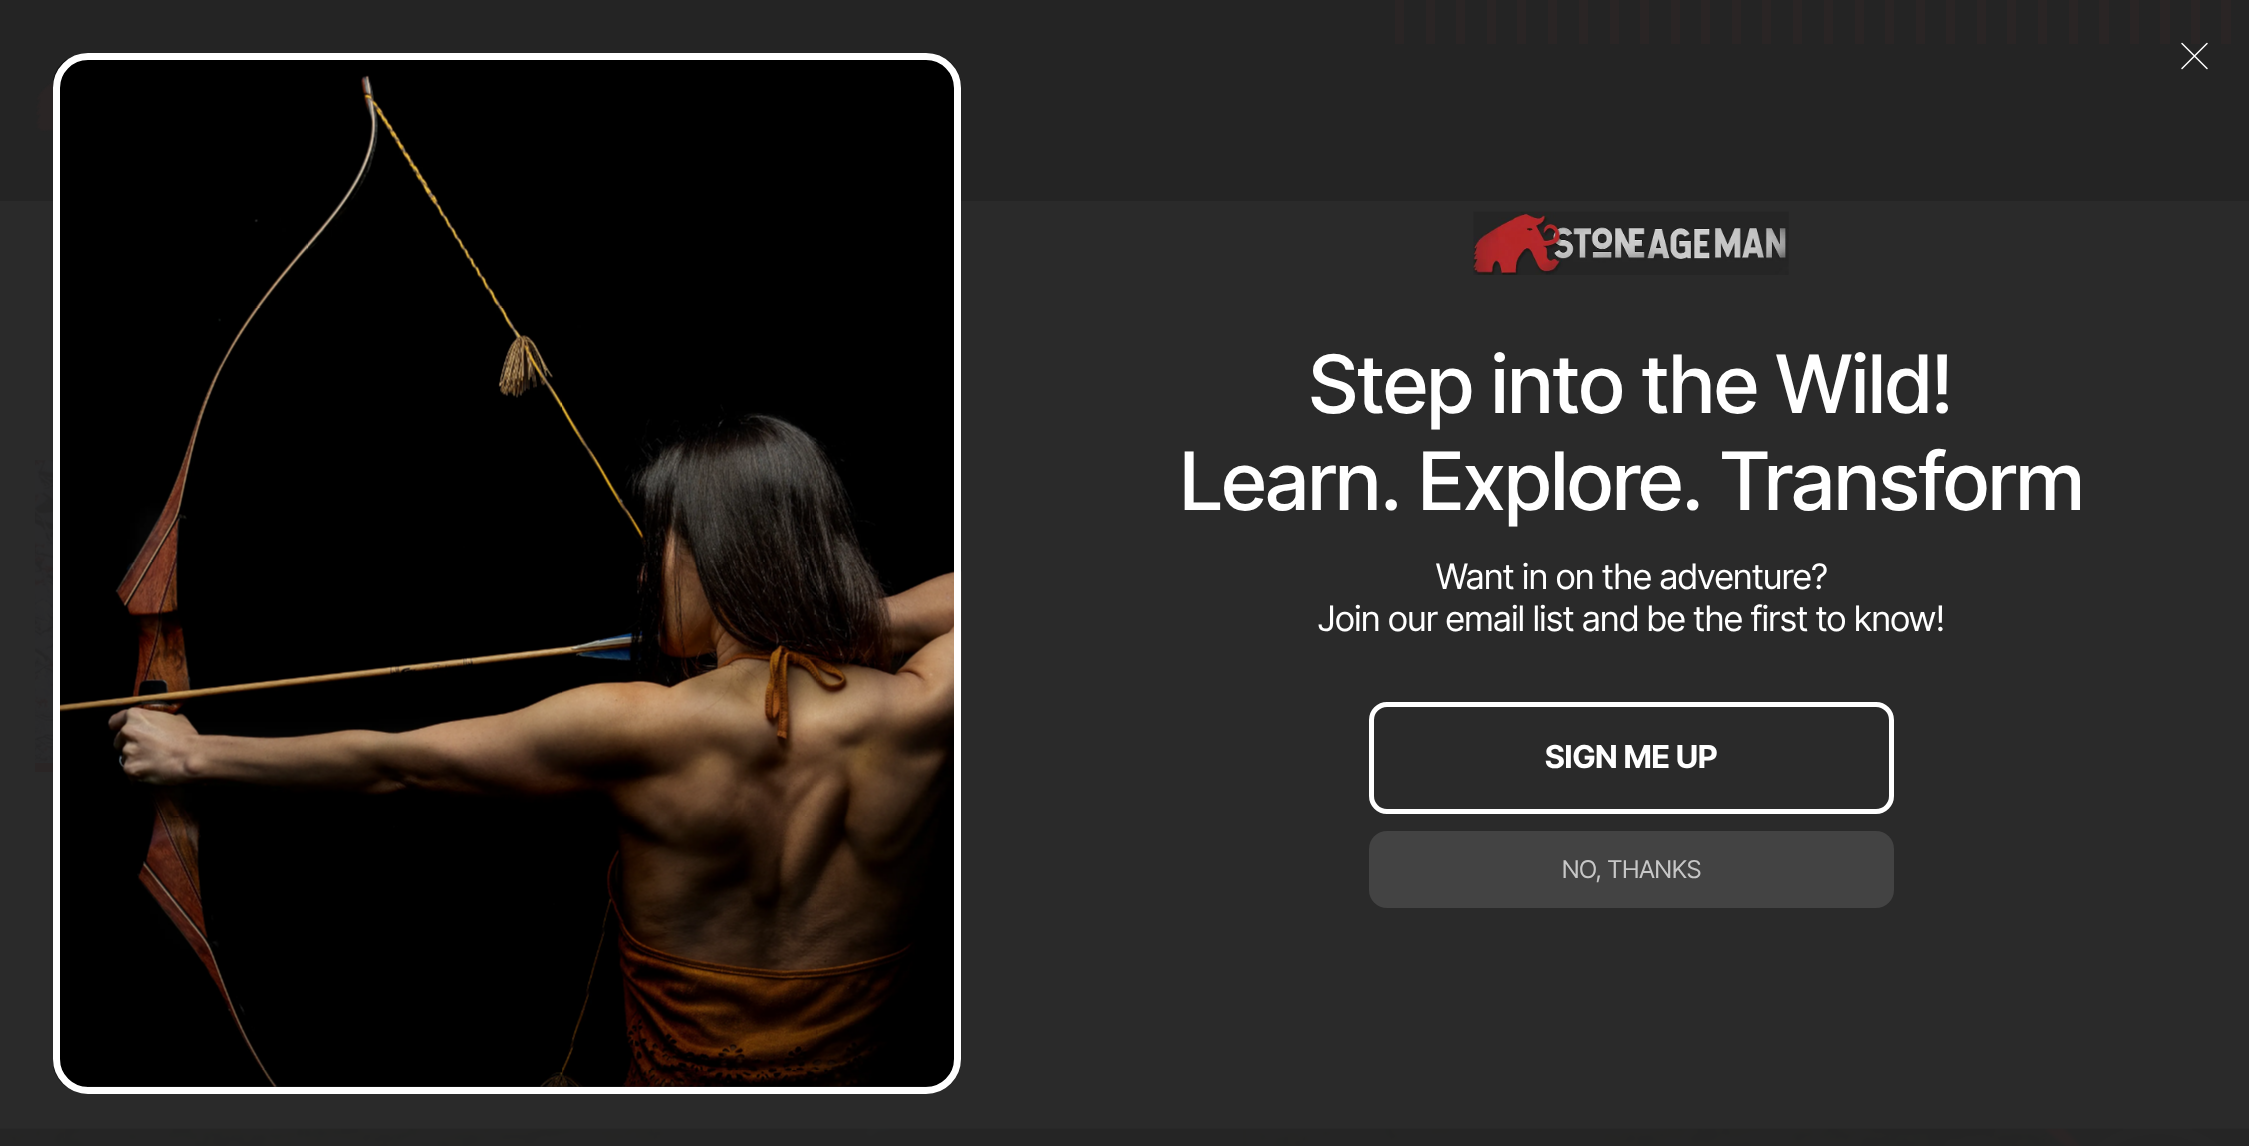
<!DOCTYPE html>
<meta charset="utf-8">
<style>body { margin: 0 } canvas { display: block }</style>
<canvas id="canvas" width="2249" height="1146"></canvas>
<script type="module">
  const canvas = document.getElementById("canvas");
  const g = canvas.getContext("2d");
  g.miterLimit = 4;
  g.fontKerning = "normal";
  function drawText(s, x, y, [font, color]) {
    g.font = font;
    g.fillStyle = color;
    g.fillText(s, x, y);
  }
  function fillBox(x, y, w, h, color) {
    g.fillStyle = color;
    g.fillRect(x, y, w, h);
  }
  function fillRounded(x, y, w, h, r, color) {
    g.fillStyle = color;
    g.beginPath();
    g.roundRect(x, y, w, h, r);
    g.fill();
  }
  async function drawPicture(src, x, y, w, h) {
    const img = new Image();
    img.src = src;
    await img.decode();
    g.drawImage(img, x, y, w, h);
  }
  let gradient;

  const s1 = ["500 80.5px Inter Tight", "#FFFFFF"];
  const s2 = ["35px Inter Tight", "#FFFFFF"];
  const s3 = ["bold 31.5px Inter Tight", "#FFFFFF"];
  const s4 = ["24.5px Inter Tight", "#C7C7C7"];

  fillBox(0, 0, 2249, 1146, "#242424");
  gradient = g.createLinearGradient(1395, 31, 1456, 31);
  gradient.addColorStop(0.15, "#2A2525");
  gradient.addColorStop(0.15, "#242424");
  gradient.addColorStop(0.5, "#242424");
  gradient.addColorStop(0.5, "#2A2525");
  gradient.addColorStop(0.65, "#2A2525");
  gradient.addColorStop(0.65, "#242424");
  gradient.addColorStop(1, "#242424");
  g.fillStyle = gradient;
  g.fillRect(1395, 0, 40, 44);
  gradient = g.createLinearGradient(1456, 31, 1517, 31);
  gradient.addColorStop(0.15, "#2A2525");
  gradient.addColorStop(0.15, "#242424");
  gradient.addColorStop(0.5, "#242424");
  gradient.addColorStop(0.5, "#2A2525");
  gradient.addColorStop(0.65, "#2A2525");
  gradient.addColorStop(0.65, "#242424");
  gradient.addColorStop(1, "#242424");
  g.fillStyle = gradient;
  g.fillRect(1456, 0, 40, 44);
  gradient = g.createLinearGradient(1517, 31, 1579, 31);
  gradient.addColorStop(0.15, "#2A2525");
  gradient.addColorStop(0.15, "#242424");
  gradient.addColorStop(0.5, "#242424");
  gradient.addColorStop(0.5, "#2A2525");
  gradient.addColorStop(0.65, "#2A2525");
  gradient.addColorStop(0.65, "#242424");
  gradient.addColorStop(1, "#242424");
  g.fillStyle = gradient;
  g.fillRect(1517, 0, 40, 44);
  gradient = g.createLinearGradient(1579, 31, 1640, 31);
  gradient.addColorStop(0.15, "#2A2525");
  gradient.addColorStop(0.15, "#242424");
  gradient.addColorStop(0.5, "#242424");
  gradient.addColorStop(0.5, "#2A2525");
  gradient.addColorStop(0.65, "#2A2525");
  gradient.addColorStop(0.65, "#242424");
  gradient.addColorStop(1, "#242424");
  g.fillStyle = gradient;
  g.fillRect(1579, 0, 40, 44);
  gradient = g.createLinearGradient(1640, 31, 1701, 31);
  gradient.addColorStop(0.15, "#2A2525");
  gradient.addColorStop(0.15, "#242424");
  gradient.addColorStop(0.5, "#242424");
  gradient.addColorStop(0.5, "#2A2525");
  gradient.addColorStop(0.65, "#2A2525");
  gradient.addColorStop(0.65, "#242424");
  gradient.addColorStop(1, "#242424");
  g.fillStyle = gradient;
  g.fillRect(1640, 0, 40, 44);
  gradient = g.createLinearGradient(1701, 31, 1762, 31);
  gradient.addColorStop(0.15, "#2A2525");
  gradient.addColorStop(0.15, "#242424");
  gradient.addColorStop(0.5, "#242424");
  gradient.addColorStop(0.5, "#2A2525");
  gradient.addColorStop(0.65, "#2A2525");
  gradient.addColorStop(0.65, "#242424");
  gradient.addColorStop(1, "#242424");
  g.fillStyle = gradient;
  g.fillRect(1701, 0, 40, 44);
  gradient = g.createLinearGradient(1762, 31, 1824, 31);
  gradient.addColorStop(0.15, "#2A2525");
  gradient.addColorStop(0.15, "#242424");
  gradient.addColorStop(0.5, "#242424");
  gradient.addColorStop(0.5, "#2A2525");
  gradient.addColorStop(0.65, "#2A2525");
  gradient.addColorStop(0.65, "#242424");
  gradient.addColorStop(1, "#242424");
  g.fillStyle = gradient;
  g.fillRect(1762, 0, 40, 44);
  gradient = g.createLinearGradient(1824, 31, 1885, 31);
  gradient.addColorStop(0.15, "#2A2525");
  gradient.addColorStop(0.15, "#242424");
  gradient.addColorStop(0.5, "#242424");
  gradient.addColorStop(0.5, "#2A2525");
  gradient.addColorStop(0.65, "#2A2525");
  gradient.addColorStop(0.65, "#242424");
  gradient.addColorStop(1, "#242424");
  g.fillStyle = gradient;
  g.fillRect(1824, 0, 40, 44);
  gradient = g.createLinearGradient(1885, 31, 1946, 31);
  gradient.addColorStop(0.15, "#2A2525");
  gradient.addColorStop(0.15, "#242424");
  gradient.addColorStop(0.5, "#242424");
  gradient.addColorStop(0.5, "#2A2525");
  gradient.addColorStop(0.65, "#2A2525");
  gradient.addColorStop(0.65, "#242424");
  gradient.addColorStop(1, "#242424");
  g.fillStyle = gradient;
  g.fillRect(1885, 0, 40, 44);
  gradient = g.createLinearGradient(1946, 31, 2007, 31);
  gradient.addColorStop(0.15, "#2A2525");
  gradient.addColorStop(0.15, "#242424");
  gradient.addColorStop(0.5, "#242424");
  gradient.addColorStop(0.5, "#2A2525");
  gradient.addColorStop(0.65, "#2A2525");
  gradient.addColorStop(0.65, "#242424");
  gradient.addColorStop(1, "#242424");
  g.fillStyle = gradient;
  g.fillRect(1946, 0, 40, 44);
  gradient = g.createLinearGradient(2007, 31, 2069, 31);
  gradient.addColorStop(0.15, "#2A2525");
  gradient.addColorStop(0.15, "#242424");
  gradient.addColorStop(0.5, "#242424");
  gradient.addColorStop(0.5, "#2A2525");
  gradient.addColorStop(0.65, "#2A2525");
  gradient.addColorStop(0.65, "#242424");
  gradient.addColorStop(1, "#242424");
  g.fillStyle = gradient;
  g.fillRect(2007, 0, 40, 44);
  gradient = g.createLinearGradient(2069, 31, 2130, 31);
  gradient.addColorStop(0.15, "#2A2525");
  gradient.addColorStop(0.15, "#242424");
  gradient.addColorStop(0.5, "#242424");
  gradient.addColorStop(0.5, "#2A2525");
  gradient.addColorStop(0.65, "#2A2525");
  gradient.addColorStop(0.65, "#242424");
  gradient.addColorStop(1, "#242424");
  g.fillStyle = gradient;
  g.fillRect(2069, 0, 40, 44);
  gradient = g.createLinearGradient(2130, 31, 2191, 31);
  gradient.addColorStop(0.15, "#2A2525");
  gradient.addColorStop(0.15, "#242424");
  gradient.addColorStop(0.5, "#242424");
  gradient.addColorStop(0.5, "#2A2525");
  gradient.addColorStop(0.65, "#2A2525");
  gradient.addColorStop(0.65, "#242424");
  gradient.addColorStop(1, "#242424");
  g.fillStyle = gradient;
  g.fillRect(2130, 0, 40, 44);
  gradient = g.createLinearGradient(2191, 31, 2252, 31);
  gradient.addColorStop(0.15, "#2A2525");
  gradient.addColorStop(0.15, "#242424");
  gradient.addColorStop(0.5, "#242424");
  gradient.addColorStop(0.5, "#2A2525");
  gradient.addColorStop(0.65, "#2A2525");
  gradient.addColorStop(0.65, "#242424");
  gradient.addColorStop(1, "#242424");
  g.fillStyle = gradient;
  g.fillRect(2191, 0, 40, 44);
  await drawPicture("pic1.png", 36, 79, 19, 53);
  fillBox(0, 201, 2249, 928, "#2A2A2A");
  await drawPicture("pic2.png", 35, 460, 18, 303);
  fillBox(35, 763, 18, 9, "#2A2525");
  await drawPicture("pic3.png", 0, 1128, 2249, 18);
  await drawPicture("pic4.png", 53, 59, 909, 1029);
  g.beginPath();
  g.roundRect(56.5, 56.5, 901, 1034, 31.5);
  g.strokeStyle = "#FFFFFF";
  g.lineWidth = 7;
  g.stroke();
  g.beginPath();
  g.moveTo(2182, 43.5);
  g.lineTo(2207, 68.5);
  g.moveTo(2207, 43.5);
  g.lineTo(2182, 68.5);
  g.lineWidth = 1.5;
  g.lineCap = "round";
  g.stroke();
  await drawPicture("pic5.png", 1473, 211, 316, 64);
  drawText("Step into the Wild!", 1309, 413, s1);
  drawText("Learn. Explore. Transform", 1180, 510, s1);
  drawText("Want in on the adventure?", 1436, 589, s2);
  drawText("Join our email list and be the first to know!", 1318, 631, s2);
  g.beginPath();
  g.roundRect(1371.5, 704.5, 520, 107, 15.5);
  g.lineWidth = 5;
  g.stroke();
  drawText("SIGN ME UP", 1545, 768, s3);
  fillRounded(1369, 831, 525, 77, 18, "#434343");
  drawText("NO, THANKS", 1562, 878, s4);
</script>
